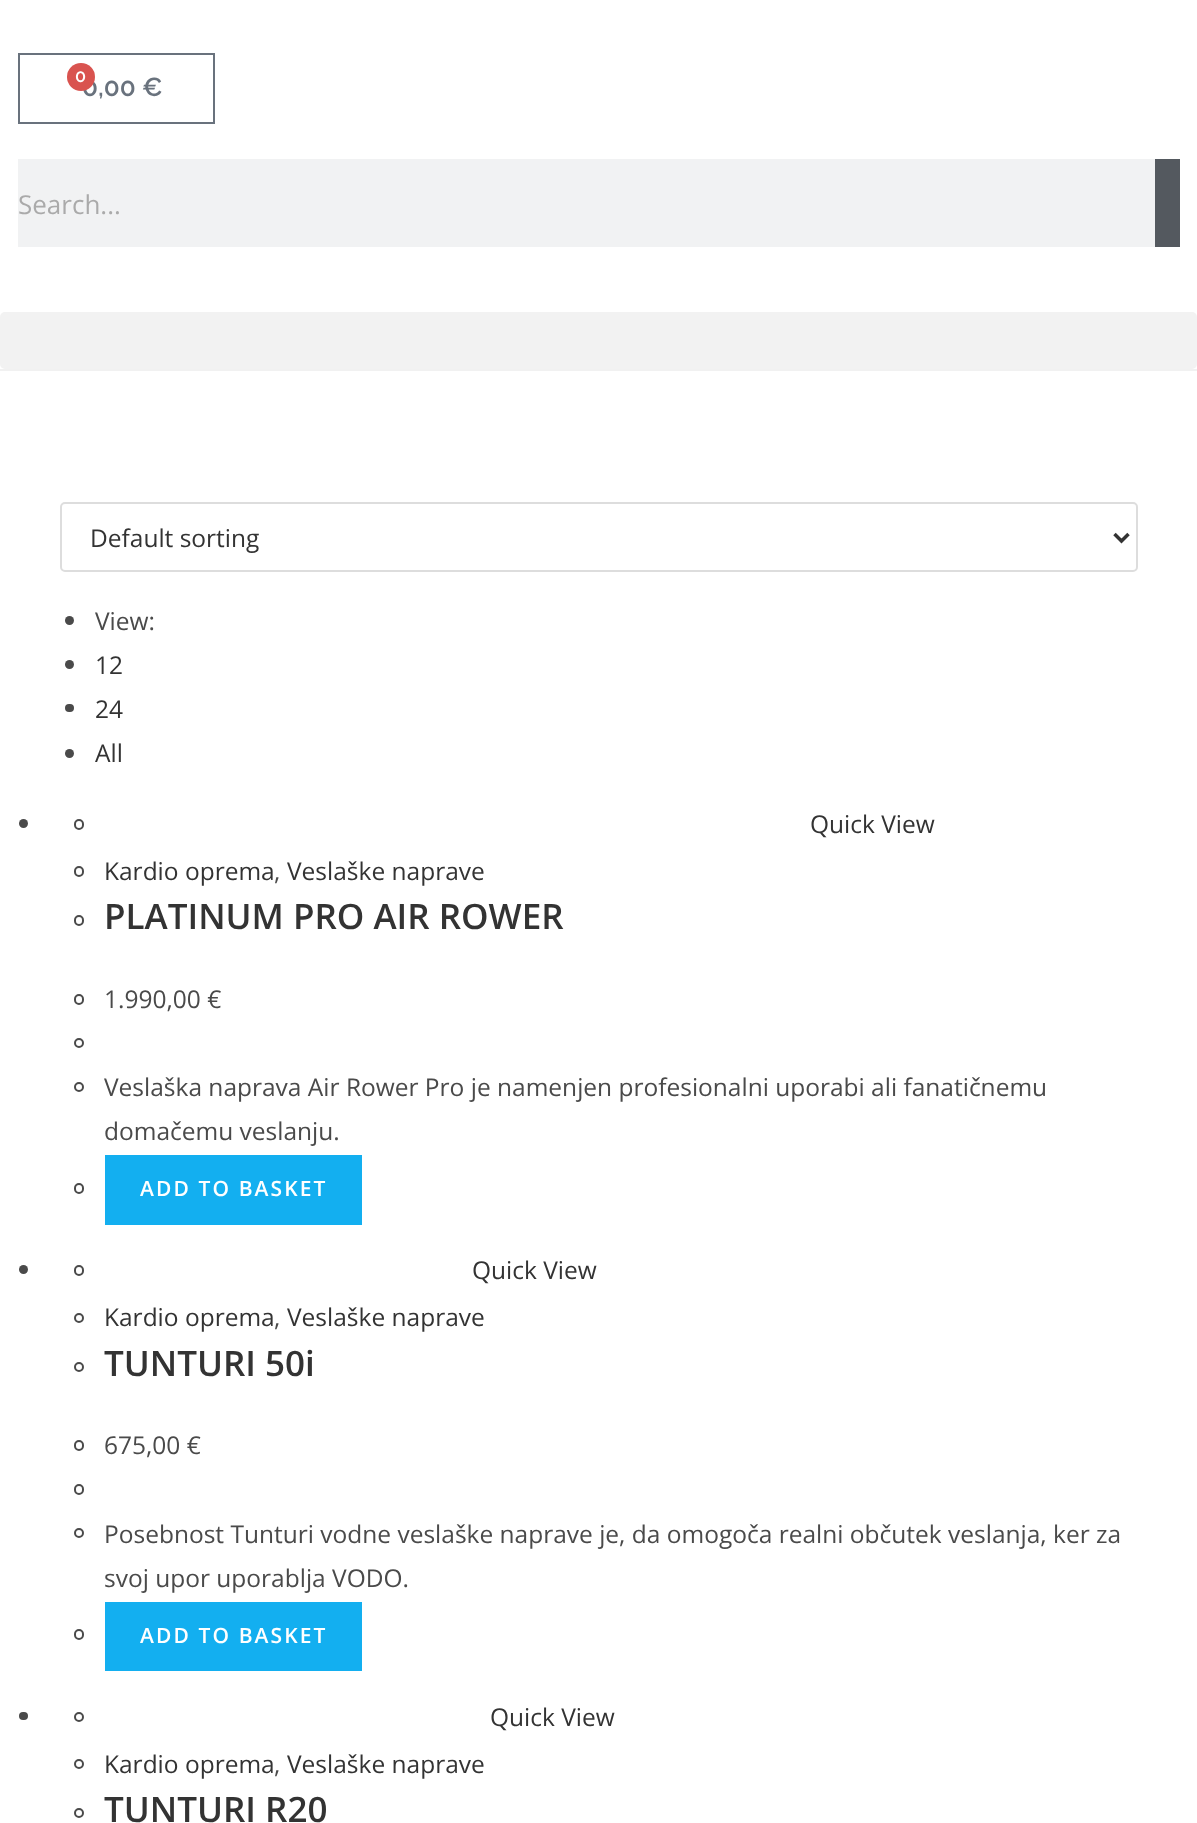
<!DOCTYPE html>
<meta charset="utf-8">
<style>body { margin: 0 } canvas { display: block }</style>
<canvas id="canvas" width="1197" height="1823"></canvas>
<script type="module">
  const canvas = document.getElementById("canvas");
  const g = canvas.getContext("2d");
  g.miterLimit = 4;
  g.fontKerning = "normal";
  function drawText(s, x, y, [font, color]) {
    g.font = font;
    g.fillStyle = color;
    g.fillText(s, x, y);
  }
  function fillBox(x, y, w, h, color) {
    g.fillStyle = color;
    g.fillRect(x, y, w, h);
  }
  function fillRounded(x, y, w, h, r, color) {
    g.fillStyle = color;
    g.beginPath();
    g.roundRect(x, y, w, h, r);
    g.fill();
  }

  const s1 = ["600 26px Raleway", "#69727D"];
  const s2 = ["600 18px Raleway", "#FFFFFF"];
  const s3 = ["26px Open Sans", "#AAAAAA"];
  const s4 = ["24.5px Open Sans", "#333333"];
  const s5 = ["24.5px Open Sans", "#4A4A4A"];
  const s6 = ["600 35px Open Sans", "#333333"];
  const s7 = ["600 21px Open Sans", "#FFFFFF"];

  fillBox(0, 0, 1197, 1823, "#FFFFFF");
  fillBox(0, 369, 1197, 2, "#F1F1F1");
  g.strokeStyle = "#69727D";
  g.lineWidth = 2;
  g.strokeRect(19, 54, 195, 69);
  drawText("0,00 €", 82, 96, s1);
  g.fillStyle = "#D9534F";
  g.beginPath();
  g.arc(81, 77, 14, 0, Math.PI * 2);
  g.fill();
  drawText("0", 75, 82, s2);
  fillBox(18, 159, 1137, 88, "#F1F2F3");
  drawText("Search...", 18, 214, s3);
  fillBox(1155, 159, 25, 88, "#54595F");
  fillRounded(0, 312, 1197, 57, 5, "#F2F2F2");
  g.beginPath();
  g.roundRect(61, 503, 1076, 68, 4);
  g.strokeStyle = "#DDDDDD";
  g.stroke();
  g.beginPath();
  g.moveTo(1114.5, 534);
  g.lineTo(1121.5, 541);
  g.lineTo(1128.5, 534);
  g.strokeStyle = "#333333";
  g.lineWidth = 3.5;
  g.stroke();
  drawText("Default sorting", 90, 547, s4);
  g.fillStyle = "#4A4A4A";
  g.beginPath();
  g.arc(69.5, 620.5, 4.5, 0, Math.PI * 2);
  g.fill();
  drawText("View:", 95, 630, s5);
  g.beginPath();
  g.arc(69.5, 664.5, 4.5, 0, Math.PI * 2);
  g.fill();
  drawText("12", 95, 674, s4);
  fillRounded(65, 704, 9, 8, 4, "#4A4A4A");
  drawText("24", 95, 718, s4);
  g.fillStyle = "#4A4A4A";
  g.beginPath();
  g.arc(69.5, 753.5, 4.5, 0, Math.PI * 2);
  g.fill();
  drawText("All", 95, 762, s4);
  g.fillStyle = "#4A4A4A";
  g.beginPath();
  g.arc(23.5, 823.5, 4.5, 0, Math.PI * 2);
  g.fill();
  g.beginPath();
  g.roundRect(75, 820, 8, 9, 4);
  g.strokeStyle = "#4A4A4A";
  g.lineWidth = 2;
  g.stroke();
  drawText("Quick View", 810, 833, s4);
  g.beginPath();
  g.roundRect(75, 867, 8, 9, 4);
  g.stroke();
  drawText("Kardio oprema", 104, 880, s4);
  drawText("Veslaške naprave", 287, 880, s4);
  drawText(",", 274, 880, s5);
  g.beginPath();
  g.roundRect(75, 916, 8, 9, 4);
  g.stroke();
  drawText("PLATINUM PRO AIR ROWER", 104, 929, s6);
  g.beginPath();
  g.roundRect(75, 995, 8, 9, 4);
  g.stroke();
  drawText("1.990,00 €", 104, 1008, s5);
  g.beginPath();
  g.arc(79, 1043, 4, 0, Math.PI * 2);
  g.stroke();
  g.beginPath();
  g.arc(79, 1087, 4, 0, Math.PI * 2);
  g.stroke();
  drawText("Veslaška naprava Air Rower Pro je namenjen profesionalni uporabi ali fanatičnemu", 104, 1096, s5);
  drawText("domačemu veslanju.", 104, 1140, s5);
  g.beginPath();
  g.roundRect(75, 1184, 8, 9, 4);
  g.stroke();
  fillBox(105, 1155, 257, 70, "#13AFF0");
  g.letterSpacing = "2.1px";
  drawText("ADD TO BASKET", 140, 1196, s7);
  g.fillStyle = "#4A4A4A";
  g.beginPath();
  g.arc(23.5, 1269.5, 4.5, 0, Math.PI * 2);
  g.fill();
  g.beginPath();
  g.roundRect(75, 1266, 8, 9, 4);
  g.stroke();
  g.letterSpacing = "0px";
  drawText("Quick View", 472, 1279, s4);
  g.beginPath();
  g.arc(79, 1318, 4, 0, Math.PI * 2);
  g.stroke();
  drawText("Kardio oprema", 104, 1326, s4);
  drawText("Veslaške naprave", 287, 1326, s4);
  drawText(",", 274, 1326, s5);
  g.beginPath();
  g.arc(79, 1367, 4, 0, Math.PI * 2);
  g.stroke();
  drawText("TUNTURI 50i", 104, 1376, s6);
  g.beginPath();
  g.roundRect(75, 1441, 8, 9, 4);
  g.stroke();
  drawText("675,00 €", 104, 1454, s5);
  g.beginPath();
  g.roundRect(75, 1485, 8, 9, 4);
  g.stroke();
  g.beginPath();
  g.arc(79, 1533, 4, 0, Math.PI * 2);
  g.stroke();
  drawText("Posebnost Tunturi vodne veslaške naprave je, da omogoča realni občutek veslanja, ker za", 104, 1543, s5);
  drawText("svoj upor uporablja VODO.", 104, 1587, s5);
  g.beginPath();
  g.roundRect(75, 1630, 8, 9, 4);
  g.stroke();
  fillBox(105, 1602, 257, 69, "#13AFF0");
  g.letterSpacing = "2.1px";
  drawText("ADD TO BASKET", 140, 1643, s7);
  fillRounded(19, 1712, 9, 8, 4, "#4A4A4A");
  g.beginPath();
  g.arc(79, 1717, 4, 0, Math.PI * 2);
  g.stroke();
  g.letterSpacing = "0px";
  drawText("Quick View", 490, 1726, s4);
  g.beginPath();
  g.arc(79, 1764, 4, 0, Math.PI * 2);
  g.stroke();
  drawText("Kardio oprema", 104, 1773, s4);
  drawText("Veslaške naprave", 287, 1773, s4);
  drawText(",", 274, 1773, s5);
  g.beginPath();
  g.arc(79, 1813, 4, 0, Math.PI * 2);
  g.stroke();
  drawText("TUNTURI R20", 104, 1822, s6);
</script>
